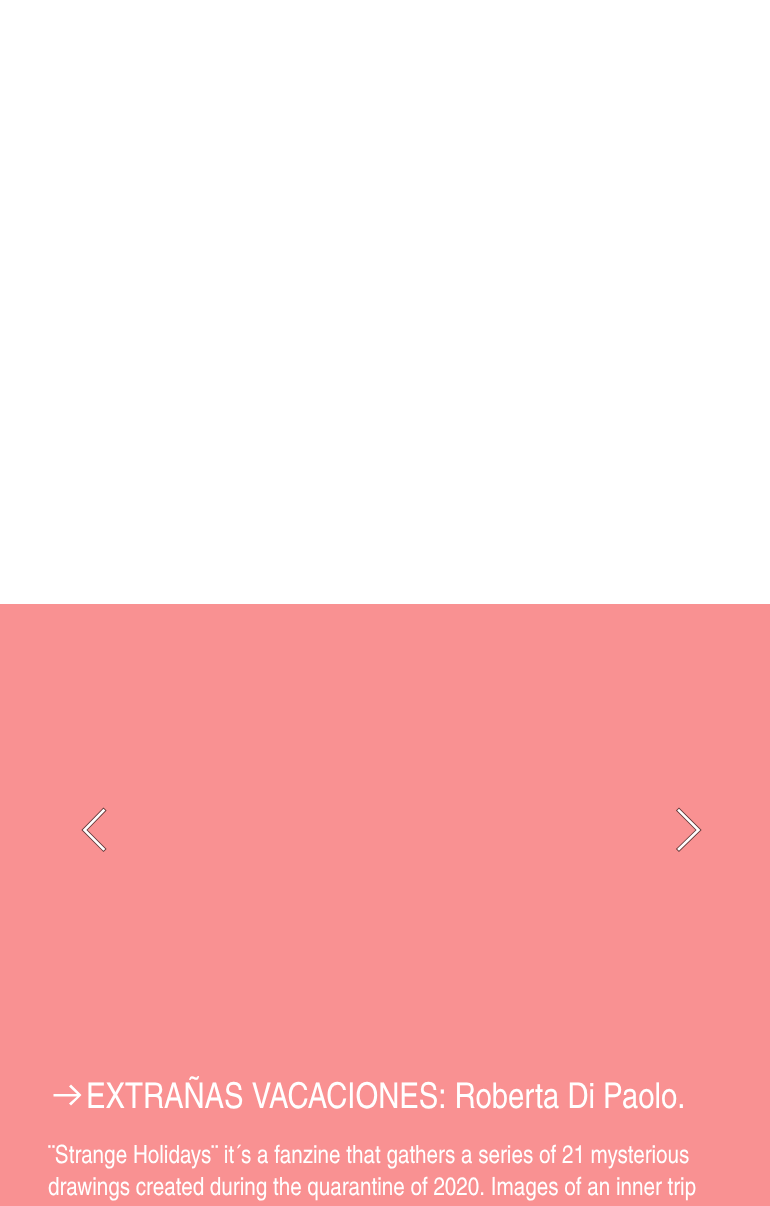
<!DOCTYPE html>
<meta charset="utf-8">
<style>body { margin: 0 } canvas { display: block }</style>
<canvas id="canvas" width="770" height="1206"></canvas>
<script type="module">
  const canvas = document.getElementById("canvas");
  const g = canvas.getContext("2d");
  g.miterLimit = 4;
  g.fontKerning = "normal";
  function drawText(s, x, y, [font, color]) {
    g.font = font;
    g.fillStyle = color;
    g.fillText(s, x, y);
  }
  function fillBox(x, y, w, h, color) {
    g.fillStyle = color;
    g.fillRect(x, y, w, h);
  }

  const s1 = ["35.7px TeX Gyre Heros Cn", "#FFFFFF"];
  const s2 = ["25.2px TeX Gyre Heros Cn", "#FFFFFF"];

  fillBox(0, 0, 770, 1206, "#F99192");
  fillBox(0, 0, 770, 604, "#FFFFFF");
  g.beginPath();
  g.moveTo(103.5, 849);
  g.lineTo(84.5, 830);
  g.lineTo(103.5, 810.5);
  g.strokeStyle = "#643A3A";
  g.lineWidth = 4.4;
  g.lineCap = "square";
  g.stroke();
  g.beginPath();
  g.moveTo(103.5, 849);
  g.lineTo(84.5, 830);
  g.lineTo(103.5, 810.5);
  g.strokeStyle = "#FFFFFF";
  g.lineWidth = 2.6;
  g.stroke();
  g.beginPath();
  g.moveTo(679, 849);
  g.lineTo(698.5, 830);
  g.lineTo(679, 810.5);
  g.strokeStyle = "#643A3A";
  g.lineWidth = 4.4;
  g.stroke();
  g.beginPath();
  g.moveTo(679, 849);
  g.lineTo(698.5, 830);
  g.lineTo(679, 810.5);
  g.strokeStyle = "#FFFFFF";
  g.lineWidth = 2.6;
  g.stroke();
  drawText("EXTRAÑAS VACACIONES: Roberta Di Paolo.", 86, 1108, s1);
  g.beginPath();
  g.moveTo(53.5, 1096.5);
  g.lineTo(77, 1096.5);
  g.lineTo(69, 1103.5);
  g.lineTo(71, 1105.5);
  g.lineTo(81.5, 1095);
  g.lineTo(71, 1084.5);
  g.lineTo(69, 1086.5);
  g.lineTo(77, 1094);
  g.lineTo(53.5, 1094);
  g.closePath();
  g.fill();
  drawText("¨Strange Holidays¨ it´s a fanzine that gathers a series of 21 mysterious", 48, 1163, s2);
  drawText("drawings created during the quarantine of 2020. Images of an inner trip", 48, 1195, s2);
</script>
